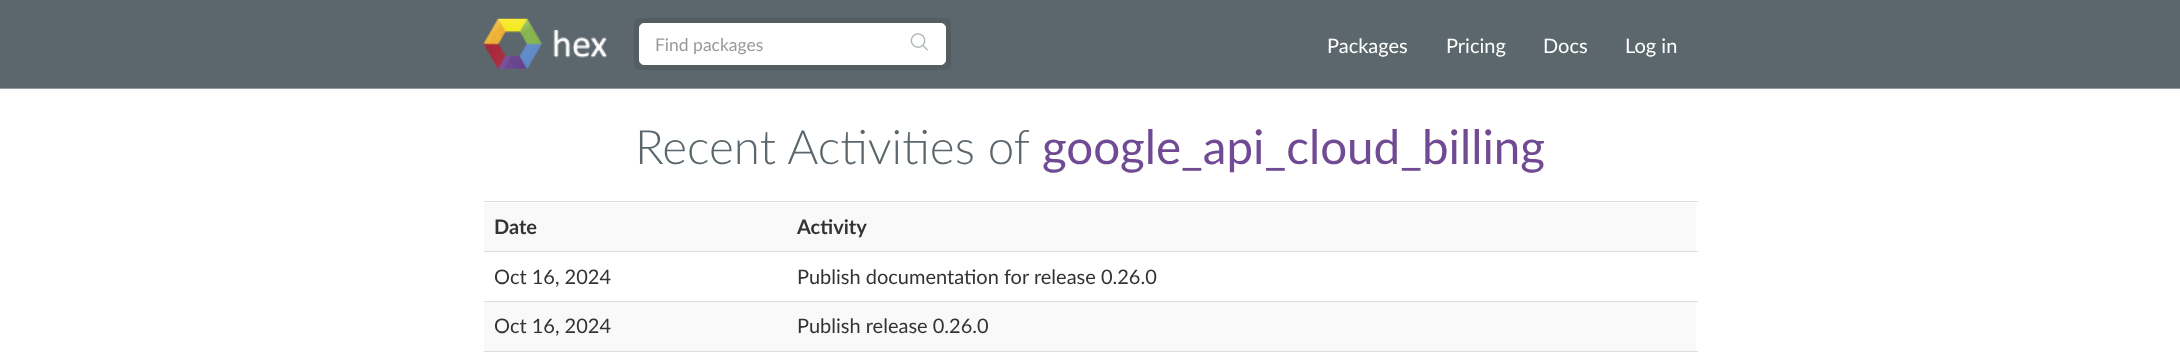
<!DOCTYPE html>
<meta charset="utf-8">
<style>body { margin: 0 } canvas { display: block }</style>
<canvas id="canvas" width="2180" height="359"></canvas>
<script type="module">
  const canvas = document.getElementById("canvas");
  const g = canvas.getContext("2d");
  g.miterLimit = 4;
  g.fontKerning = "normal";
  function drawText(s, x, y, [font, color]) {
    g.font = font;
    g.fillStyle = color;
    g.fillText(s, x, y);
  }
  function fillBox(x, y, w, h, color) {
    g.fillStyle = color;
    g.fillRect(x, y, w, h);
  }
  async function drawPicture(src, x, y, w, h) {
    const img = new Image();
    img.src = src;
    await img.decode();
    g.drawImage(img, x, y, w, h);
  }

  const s1 = ["17.5px Lato", "#999999"];
  const s2 = ["20px Lato", "#FFFFFF"];
  const s3 = ["300 47.5px Lato", "#5C676D"];
  const s4 = ["47.5px Lato", "#714A94"];
  const s5 = ["bold 20px Lato", "#333333"];
  const s6 = ["20px Lato", "#333333"];

  fillBox(0, 0, 2180, 359, "#FFFFFF");
  fillBox(0, 0, 2180, 88, "#5C676D");
  fillBox(0, 88, 2180, 1, "#919CA2");
  await drawPicture("pic1.png", 483, 18, 124, 51);
  g.beginPath();
  g.roundRect(636.5, 20.5, 312, 47, 2.5);
  g.strokeStyle = "#535D62";
  g.lineWidth = 5;
  g.stroke();
  g.fillStyle = "#FFFFFF";
  g.beginPath();
  g.roundRect(639.5, 23.5, 254, 41, [4.5, 0, 0, 4.5]);
  g.fill();
  g.strokeStyle = "#FFFFFF";
  g.lineWidth = 1;
  g.stroke();
  drawText("Find packages", 655, 51, s1);
  g.fillStyle = "#FFFFFF";
  g.beginPath();
  g.roundRect(893.5, 23.5, 52, 41, [0, 4.5, 4.5, 0]);
  g.fill();
  g.stroke();
  await drawPicture("pic2.png", 910, 33, 18, 18);
  drawText("Packages", 1327, 53, s2);
  drawText("Pricing", 1446, 53, s2);
  drawText("Docs", 1543, 53, s2);
  drawText("Log in", 1625, 53, s2);
  drawText("Recent Activities of", 635, 164, s3);
  drawText("google_api_cloud_billing", 1042, 164, s4);
  fillBox(484, 203, 1212, 48, "#F9F9F9");
  drawText("Date", 494, 234, s5);
  fillBox(484, 201, 1214, 1, "#DDDDDD");
  drawText("Activity", 797, 234, s5);
  drawText("Oct 16, 2024", 494, 284, s6);
  fillBox(484, 251, 1214, 1, "#DDDDDD");
  drawText("Publish documentation for release 0.26.0", 797, 284, s6);
  fillBox(484, 302, 1212, 49, "#F9F9F9");
  drawText("Oct 16, 2024", 494, 333, s6);
  fillBox(484, 301, 1214, 1, "#DDDDDD");
  drawText("Publish release 0.26.0", 797, 333, s6);
  fillBox(484, 351, 1214, 1, "#DDDDDD");
</script>
